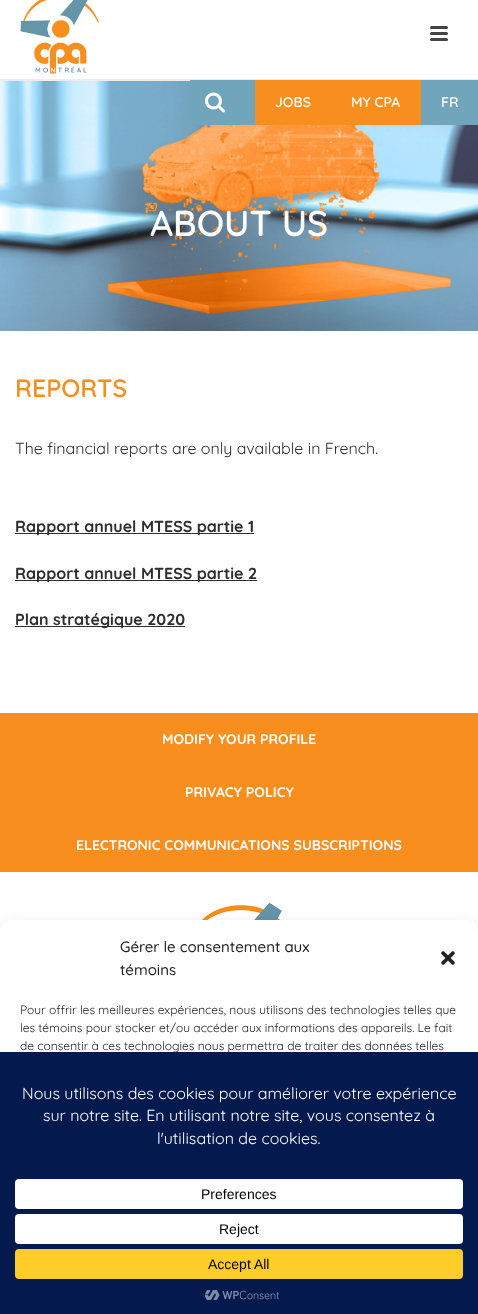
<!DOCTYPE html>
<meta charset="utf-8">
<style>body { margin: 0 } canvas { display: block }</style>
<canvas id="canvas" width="478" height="1314"></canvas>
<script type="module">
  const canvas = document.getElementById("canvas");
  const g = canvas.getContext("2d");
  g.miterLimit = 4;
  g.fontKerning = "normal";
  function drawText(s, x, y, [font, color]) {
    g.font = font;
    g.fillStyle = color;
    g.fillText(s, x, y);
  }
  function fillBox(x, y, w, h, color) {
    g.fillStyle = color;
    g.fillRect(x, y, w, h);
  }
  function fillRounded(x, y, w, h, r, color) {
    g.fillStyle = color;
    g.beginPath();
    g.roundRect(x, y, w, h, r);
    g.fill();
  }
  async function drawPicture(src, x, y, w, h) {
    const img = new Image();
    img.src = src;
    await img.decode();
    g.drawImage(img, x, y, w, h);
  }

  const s1 = ["600 14px Quicksand", "#FFFFFF"];
  const s2 = ["600 36px Quicksand", "#FFFFFF"];
  const s3 = ["600 25px Quicksand", "#F78E1E"];
  const s4 = ["16px Quicksand", "#2E2E2E"];
  const s5 = ["bold 16px Quicksand", "#2E2E2E"];
  const s6 = ["bold 14px Quicksand", "#FFFFFF"];
  const s7 = ["500 15px Quicksand", "#222222"];
  const s8 = ["12px Quicksand", "#222222"];
  const s9 = ["16px Quicksand", "#FFFFFF"];
  const s10 = ["14px Liberation Sans", "#000000"];

  fillBox(0, 0, 478, 1314, "#FFFFFF");
  fillBox(0, 80, 190, 1, "#EDEDED");
  fillBox(0, 79, 478, 1, "#EDEDED");
  await drawPicture("pic1.png", 20, 0, 79, 74);
  fillRounded(430, 26, 18, 3, 1.5, "#444444");
  fillRounded(430, 32, 18, 3, 1.5, "#444444");
  fillRounded(430, 38, 18, 3, 1.5, "#444444");
  await drawPicture("pic3.png", 0, 81, 478, 250);
  g.fillStyle = "#71A5BB";
  g.beginPath();
  g.roundRect(190, 80, 65, 45, [0, 0, 0, 10]);
  g.fill();
  await drawPicture("pic2.png", 205, 92, 20, 21);
  fillBox(255, 80, 166, 45, "#F78E1E");
  drawText("JOBS", 275, 107, s1);
  drawText("MY CPA", 351, 107, s1);
  fillBox(421, 80, 57, 45, "#71A5BB");
  drawText("FR", 441, 107, s1);
  drawText("ABOUT US", 150, 236, s2);
  drawText("REPORTS", 15, 397, s3);
  drawText("The financial reports are only available in French.", 15, 454, s4);
  fillBox(15, 533, 239, 1, "#2E2E2E");
  drawText("Rapport annuel MTESS partie 1", 15, 532, s5);
  fillBox(15, 580, 242, 1, "#2E2E2E");
  drawText("Rapport annuel MTESS partie 2", 15, 579, s5);
  fillBox(15, 626, 170, 1, "#2E2E2E");
  drawText("Plan stratégique 2020", 15, 625, s5);
  fillBox(0, 713, 478, 159, "#F78E1E");
  drawText("MODIFY YOUR PROFILE", 162, 744, s6);
  drawText("PRIVACY POLICY", 185, 797, s6);
  drawText("ELECTRONIC COMMUNICATIONS SUBSCRIPTIONS", 76, 850, s6);
  await drawPicture("pic4.png", 201, 902, 81, 18);
  g.fillStyle = "rgba(0, 0, 0, 0.19)";
  g.filter = "blur(10px)";
  g.beginPath();
  g.roundRect(0, 930, 478, 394, 12);
  g.fill();
  g.filter = "none";
  fillRounded(0, 920, 478, 394, 12, "#FFFFFF");
  drawText("Gérer le consentement aux", 120, 952, s7);
  drawText("témoins", 120, 975, s7);
  await drawPicture("pic5.png", 441, 951, 14, 14);
  drawText("Pour offrir les meilleures expériences, nous utilisons des technologies telles que", 20, 1014, s8);
  drawText("les témoins pour stocker et/ou accéder aux informations des appareils. Le fait", 20, 1032, s8);
  drawText("de consentir à ces technologies nous permettra de traiter des données telles", 20, 1050, s8);
  fillBox(0, 1052, 478, 262, "#04194E");
  drawText("Nous utilisons des cookies pour améliorer votre expérience", 22, 1099, s9);
  drawText("sur notre site. En utilisant notre site, vous consentez à", 43, 1121, s9);
  drawText("l'utilisation de cookies.", 157, 1144, s9);
  fillRounded(15, 1179, 448, 30, 4, "#FFFFFF");
  drawText("Preferences", 201, 1199, s10);
  fillRounded(15, 1214, 448, 30, 4, "#FFFFFF");
  drawText("Reject", 219, 1234, s10);
  fillRounded(15, 1249, 448, 30, 4, "#FFCD2A");
  drawText("Accept All", 208, 1269, s10);
  await drawPicture("pic6.png", 204, 1290, 75, 11);
</script>
